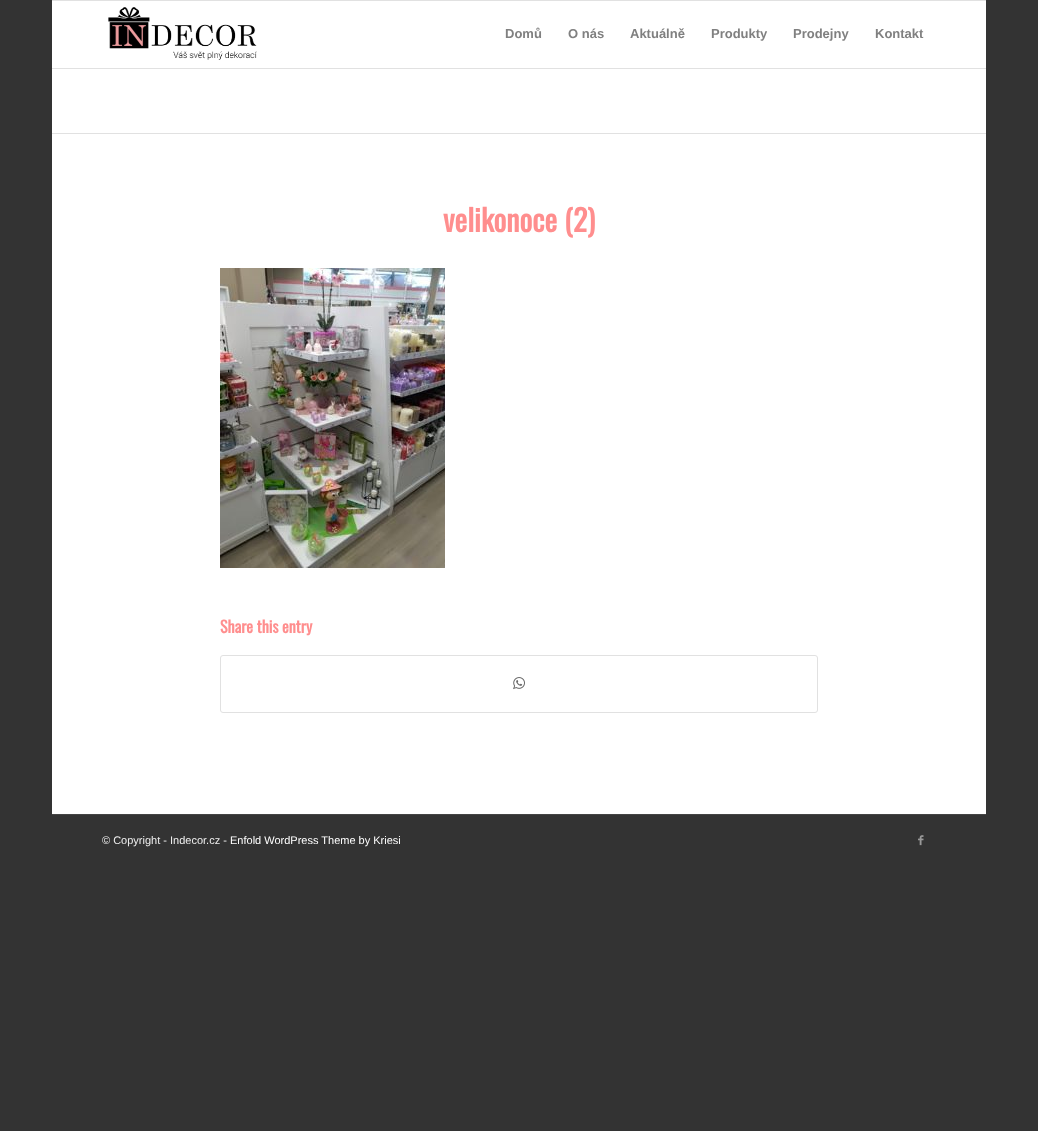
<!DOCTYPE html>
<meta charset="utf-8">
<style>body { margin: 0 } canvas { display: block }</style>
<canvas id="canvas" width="1038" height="1131"></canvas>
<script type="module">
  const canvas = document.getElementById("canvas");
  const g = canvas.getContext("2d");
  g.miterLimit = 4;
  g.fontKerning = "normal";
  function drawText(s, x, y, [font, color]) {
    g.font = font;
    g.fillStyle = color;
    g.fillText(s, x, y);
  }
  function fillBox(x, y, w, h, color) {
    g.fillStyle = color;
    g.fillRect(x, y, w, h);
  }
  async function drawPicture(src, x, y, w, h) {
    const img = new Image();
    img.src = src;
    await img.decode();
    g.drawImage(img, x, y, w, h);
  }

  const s1 = ["bold 13px Liberation Sans", "#808080"];
  const s2 = ["bold 30px Oswald", "#FF8E8E"];
  const s3 = ["bold 16px Oswald", "#FF8E8E"];
  const s4 = ["11px Liberation Sans", "#EEEEEE"];
  const s5 = ["11px Liberation Sans", "#FFFFFF"];

  fillBox(0, 0, 1038, 1131, "#333333");
  fillBox(52, 0, 934, 1, "#E1E1E1");
  fillBox(52, 1, 934, 813, "#FFFFFF");
  fillBox(52, 68, 934, 1, "#E1E1E1");
  await drawPicture("pic1.png", 108, 7, 149, 53);
  drawText("Domů", 505, 38, s1);
  drawText("O nás", 568, 38, s1);
  drawText("Aktuálně", 630, 38, s1);
  drawText("Produkty", 711, 38, s1);
  drawText("Prodejny", 793, 38, s1);
  drawText("Kontakt", 875, 38, s1);
  fillBox(52, 133, 934, 1, "#E1E1E1");
  drawText("velikonoce (2)", 443, 232, s2);
  await drawPicture("pic2.png", 220, 268, 225, 300);
  g.fillStyle = "#FFFFFF";
  g.beginPath();
  g.arc(558, 276, 40, 0, Math.PI * 2);
  g.fill();
  drawText("Share this entry", 220, 633, s3);
  g.beginPath();
  g.roundRect(220.5, 655.5, 597, 57, 2.5);
  g.strokeStyle = "#E1E1E1";
  g.stroke();
  await drawPicture("pic3.png", 513, 677, 12, 13);
  fillBox(52, 814, 934, 1, "#444444");
  drawText("© Copyright - Indecor.cz -", 102, 844, s4);
  drawText("Enfold WordPress Theme by Kriesi", 230, 844, s5);
  await drawPicture("pic4.png", 918, 835, 6, 11);
</script>
